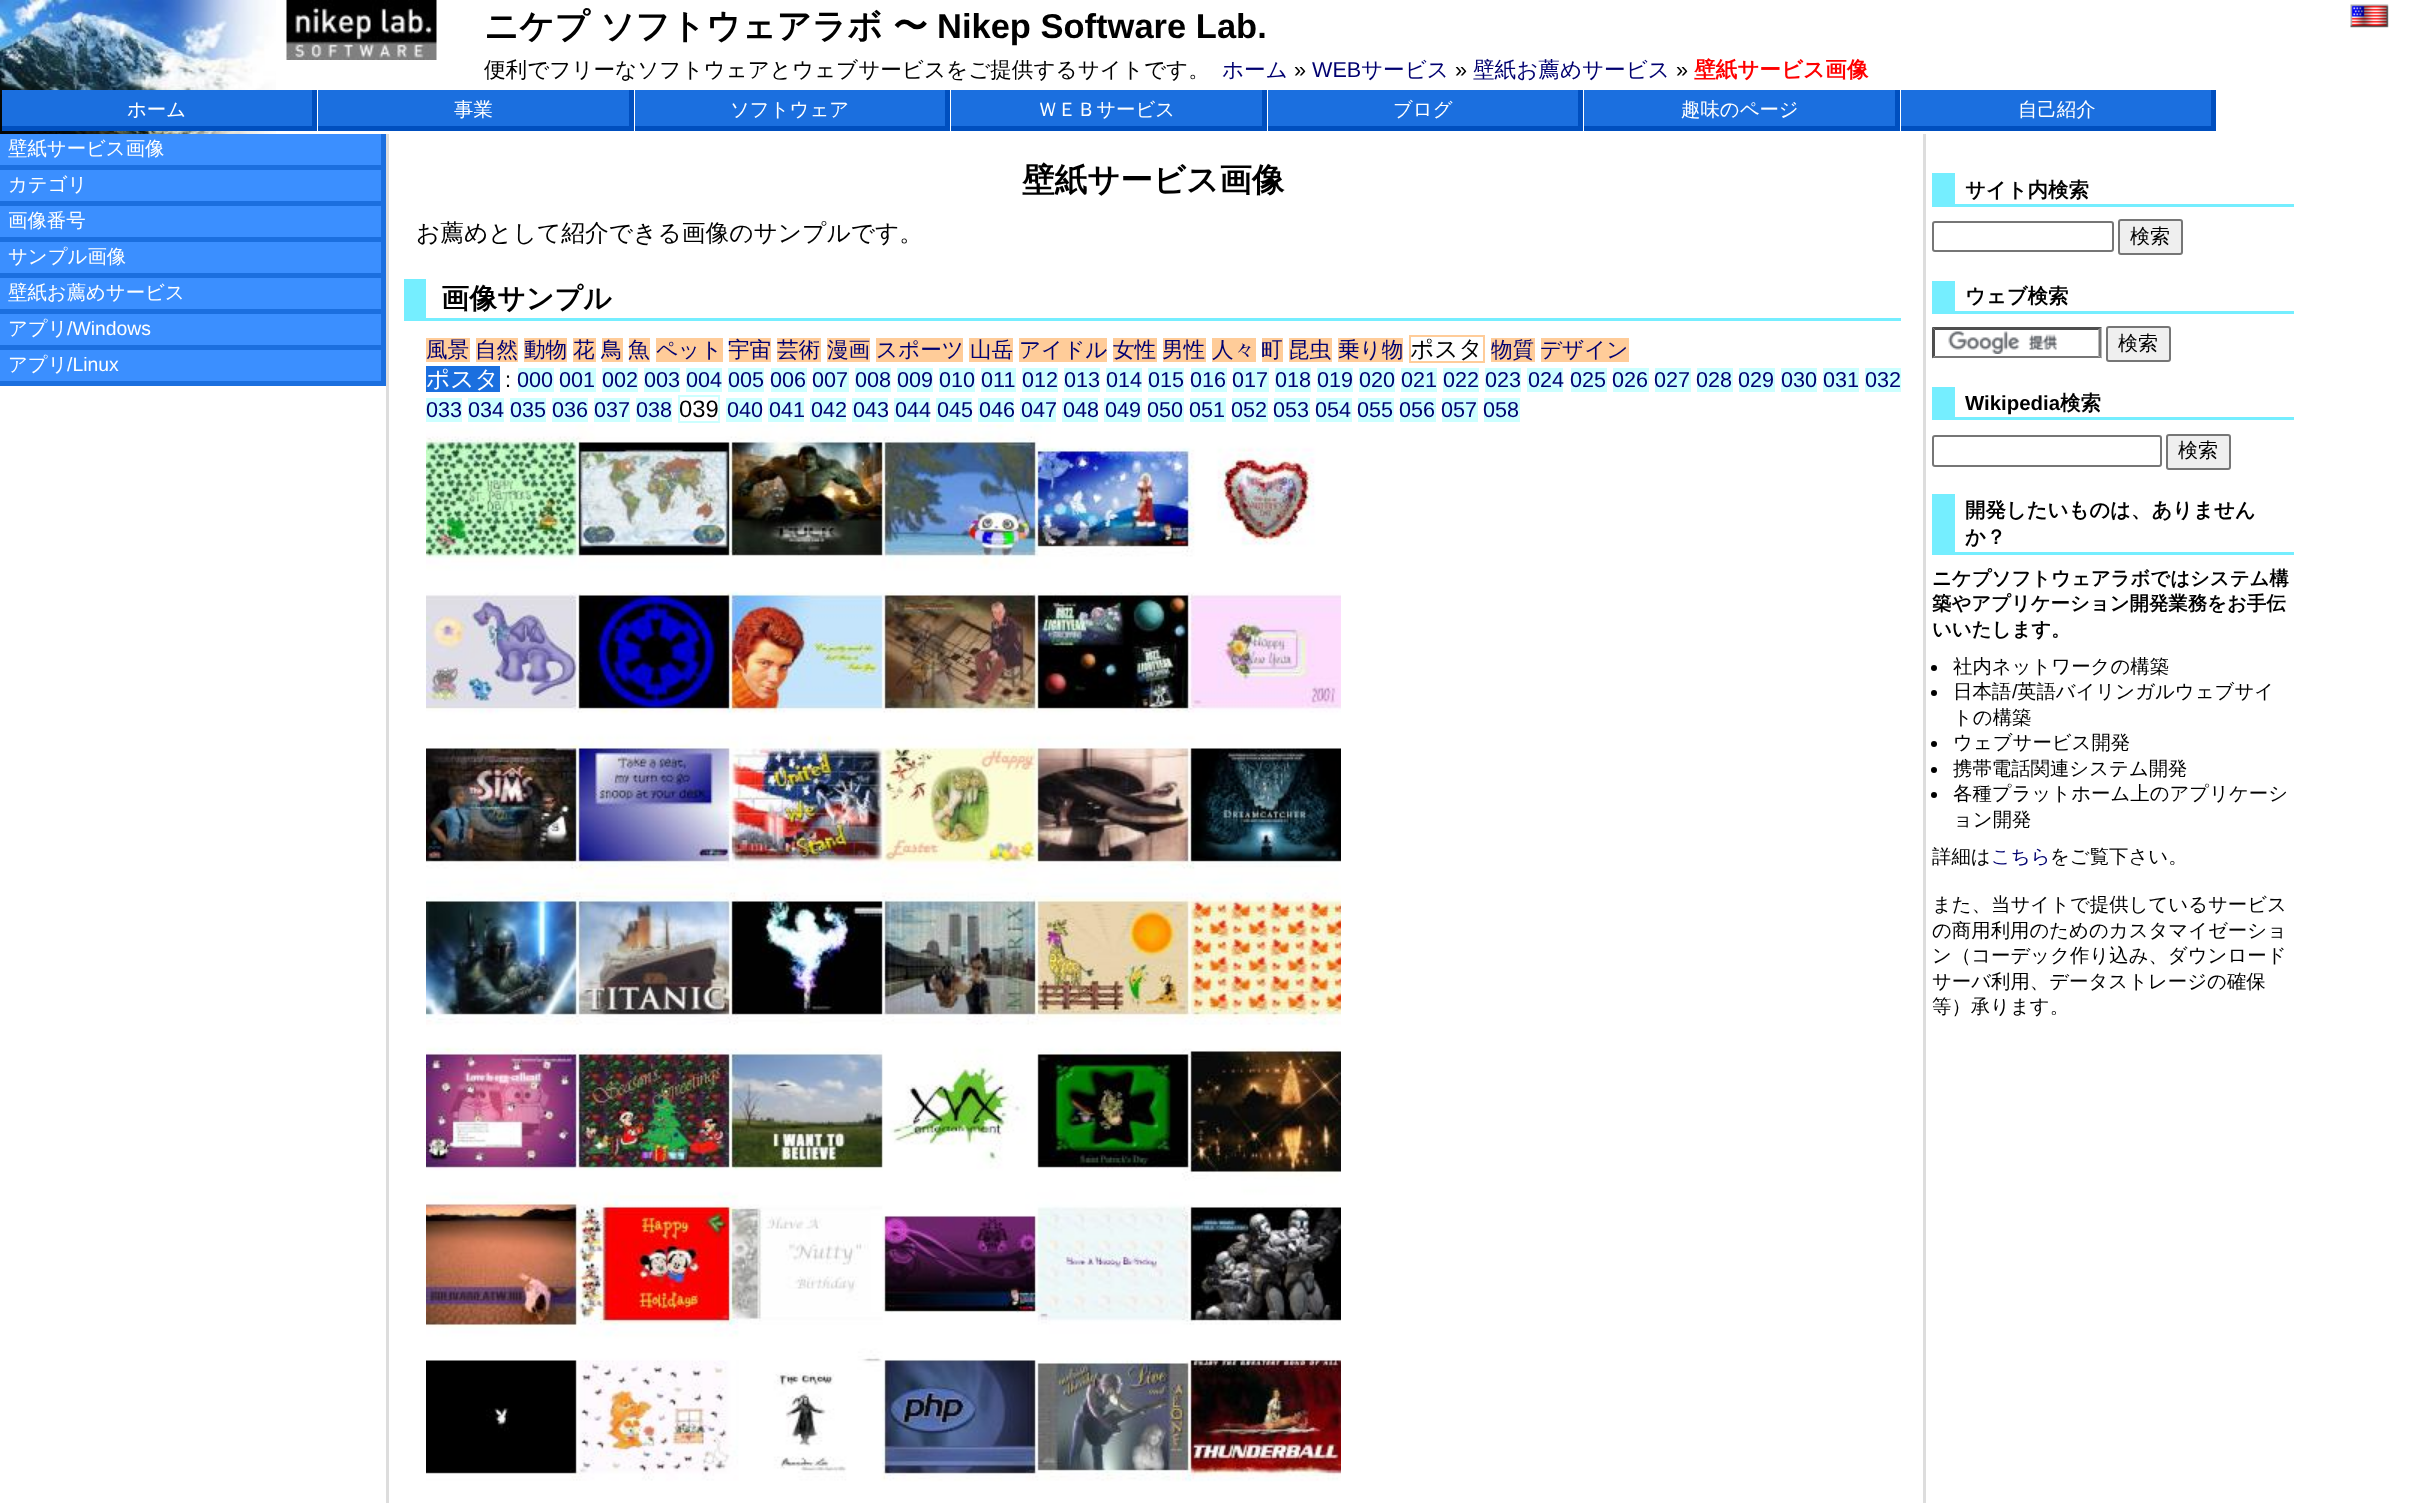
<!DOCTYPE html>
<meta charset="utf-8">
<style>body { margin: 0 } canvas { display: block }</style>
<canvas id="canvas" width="2413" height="1503"></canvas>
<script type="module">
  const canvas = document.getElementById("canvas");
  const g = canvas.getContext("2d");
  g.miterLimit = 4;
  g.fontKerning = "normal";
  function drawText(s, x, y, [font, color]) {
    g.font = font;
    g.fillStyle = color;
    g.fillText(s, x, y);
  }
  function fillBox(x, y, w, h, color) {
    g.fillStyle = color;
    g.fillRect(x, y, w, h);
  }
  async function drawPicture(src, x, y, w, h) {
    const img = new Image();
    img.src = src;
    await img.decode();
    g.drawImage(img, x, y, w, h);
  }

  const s1 = ["bold 34.5px WenQuanYi Zen Hei", "#000000"];
  const s2 = ["bold 34.5px Liberation Sans", "#000000"];
  const s3 = ["500 21.6px WenQuanYi Zen Hei", "#000000"];
  const s4 = ["500 21.6px WenQuanYi Zen Hei", "#000070"];
  const s5 = ["21.6px Liberation Sans", "#000000"];
  const s6 = ["21.6px Liberation Sans", "#000070"];
  const s7 = ["bold 21.6px WenQuanYi Zen Hei", "#FF0000"];
  const s8 = ["500 19.4px WenQuanYi Zen Hei", "#FFFFFF"];
  const s9 = ["19.4px Liberation Sans", "#FFFFFF"];
  const s10 = ["bold 32.5px WenQuanYi Zen Hei", "#000000"];
  const s11 = ["500 23.75px WenQuanYi Zen Hei", "#000000"];
  const s12 = ["bold 28px WenQuanYi Zen Hei", "#000000"];
  const s13 = ["500 23.75px WenQuanYi Zen Hei", "#FFFFFF"];
  const s14 = ["23.75px Liberation Sans", "#000000"];
  const s15 = ["bold 20.4px WenQuanYi Zen Hei", "#000000"];
  const s16 = ["500 20px WenQuanYi Zen Hei", "#000000"];
  const s17 = ["bold 20.4px Liberation Sans", "#000000"];
  const s18 = ["bold 19.4px WenQuanYi Zen Hei", "#000000"];
  const s19 = ["500 19.4px WenQuanYi Zen Hei", "#000000"];
  const s20 = ["19.4px Liberation Sans", "#000000"];
  const s21 = ["500 19.4px WenQuanYi Zen Hei", "#000070"];

  fillBox(0, 0, 2413, 1503, "#FFFFFF");
  await drawPicture("pic1.png", 0, 0, 276, 134);
  await drawPicture("pic2.png", 286, 0, 151, 60);
  drawText("ニケプ", 484, 38, s1);
  drawText("ソフトウェアラボ", 600, 38, s1);
  drawText("〜", 893, 38, s1);
  drawText("Nikep Software Lab.", 937, 38, s2);
  await drawPicture("pic3.png", 2350, 4, 39, 24);
  drawText("便利でフリーなソフトウェアとウェブサービスをご提供するサイトです。", 484, 77, s3);
  drawText("ホーム", 1222, 77, s4);
  drawText("»", 1294, 77, s5);
  drawText("WEB", 1312, 77, s6);
  drawText("サービス", 1361, 77, s4);
  drawText("»", 1455, 77, s5);
  drawText("壁紙お薦めサービス", 1473, 77, s4);
  drawText("»", 1676, 77, s5);
  drawText("壁紙サービス画像", 1694, 77, s7);
  fillBox(2, 90, 310, 36, "#1B6FDF");
  fillBox(312, 90, 5, 41, "#004FBF");
  fillBox(2, 126, 315, 5, "#004FBF");
  drawText("ホーム", 127, 116, s8);
  fillBox(318, 90, 311, 36, "#1B6FDF");
  fillBox(629, 90, 5, 41, "#004FBF");
  fillBox(318, 126, 315, 5, "#004FBF");
  drawText("事業", 454, 116, s8);
  fillBox(635, 90, 310, 36, "#1B6FDF");
  fillBox(945, 90, 5, 41, "#004FBF");
  fillBox(635, 126, 315, 5, "#004FBF");
  drawText("ソフトウェア", 730, 116, s8);
  fillBox(951, 90, 311, 36, "#1B6FDF");
  fillBox(1262, 90, 5, 41, "#004FBF");
  fillBox(951, 126, 315, 5, "#004FBF");
  drawText("ＷＥＢサービス", 1038, 116, s8);
  fillBox(1268, 90, 310, 36, "#1B6FDF");
  fillBox(1578, 90, 5, 41, "#004FBF");
  fillBox(1268, 126, 315, 5, "#004FBF");
  drawText("ブログ", 1393, 116, s8);
  fillBox(1584, 90, 311, 36, "#1B6FDF");
  fillBox(1895, 90, 5, 41, "#004FBF");
  fillBox(1584, 126, 315, 5, "#004FBF");
  drawText("趣味のページ", 1681, 116, s8);
  fillBox(1901, 90, 310, 36, "#1B6FDF");
  fillBox(2211, 90, 5, 41, "#004FBF");
  fillBox(1901, 126, 315, 5, "#004FBF");
  drawText("自己紹介", 2018, 116, s8);
  fillBox(0, 134, 381, 31, "#3B8FFF");
  fillBox(381, 134, 5, 252, "#1B6FDF");
  fillBox(0, 165, 386, 5, "#1B6FDF");
  drawText("壁紙サービス画像", 8, 155, s8);
  fillBox(0, 170, 381, 31, "#3B8FFF");
  fillBox(0, 201, 386, 5, "#1B6FDF");
  drawText("カテゴリ", 8, 191, s8);
  fillBox(0, 206, 381, 31, "#3B8FFF");
  fillBox(0, 237, 386, 5, "#1B6FDF");
  drawText("画像番号", 8, 227, s8);
  fillBox(0, 242, 381, 31, "#3B8FFF");
  fillBox(0, 273, 386, 5, "#1B6FDF");
  drawText("サンプル画像", 8, 263, s8);
  fillBox(0, 278, 381, 31, "#3B8FFF");
  fillBox(0, 309, 386, 5, "#1B6FDF");
  drawText("壁紙お薦めサービス", 8, 299, s8);
  fillBox(0, 314, 381, 31, "#3B8FFF");
  fillBox(0, 345, 386, 5, "#1B6FDF");
  drawText("アプリ", 8, 335, s8);
  drawText("/Windows", 67, 335, s9);
  fillBox(0, 350, 381, 31, "#3B8FFF");
  fillBox(0, 381, 386, 5, "#1B6FDF");
  drawText("アプリ", 8, 371, s8);
  drawText("/Linux", 67, 371, s9);
  fillBox(1923, 134, 3, 1369, "#DDDDDD");
  fillBox(386, 134, 3, 1369, "#DDDDDD");
  drawText("壁紙サービス画像", 1022, 191, s10);
  drawText("お薦めとして紹介できる画像のサンプルです。", 416, 241, s11);
  fillBox(426, 318, 1475, 3, "#75EEFF");
  fillBox(404, 279, 22, 42, "#75EEFF");
  drawText("画像サンプル", 441, 308, s12);
  fillBox(426, 338, 44, 24, "#FFCC99");
  drawText("風景", 426, 357, s4);
  fillBox(476, 338, 42, 24, "#FFCC99");
  drawText("自然", 475, 357, s4);
  fillBox(524, 338, 43, 24, "#FFCC99");
  drawText("動物", 524, 357, s4);
  fillBox(573, 338, 23, 24, "#FFCC99");
  drawText("花", 573, 357, s4);
  fillBox(602, 338, 21, 24, "#FFCC99");
  drawText("鳥", 601, 357, s4);
  fillBox(629, 338, 21, 24, "#FFCC99");
  drawText("魚", 628, 357, s4);
  fillBox(656, 338, 67, 24, "#FFCC99");
  drawText("ペット", 656, 357, s4);
  fillBox(729, 338, 42, 24, "#FFCC99");
  drawText("宇宙", 728, 357, s4);
  fillBox(777, 338, 44, 24, "#FFCC99");
  drawText("芸術", 777, 357, s4);
  fillBox(827, 338, 43, 24, "#FFCC99");
  drawText("漫画", 827, 357, s4);
  fillBox(876, 338, 87, 24, "#FFCC99");
  drawText("スポーツ", 876, 357, s4);
  fillBox(969, 338, 44, 24, "#FFCC99");
  drawText("山岳", 970, 357, s4);
  fillBox(1019, 338, 88, 24, "#FFCC99");
  drawText("アイドル", 1019, 357, s4);
  fillBox(1113, 338, 44, 24, "#FFCC99");
  drawText("女性", 1113, 357, s4);
  fillBox(1163, 338, 43, 24, "#FFCC99");
  drawText("男性", 1162, 357, s4);
  fillBox(1212, 338, 44, 24, "#FFCC99");
  drawText("人々", 1212, 357, s4);
  fillBox(1262, 338, 21, 24, "#FFCC99");
  drawText("町", 1261, 357, s4);
  fillBox(1289, 338, 43, 24, "#FFCC99");
  drawText("昆虫", 1288, 357, s4);
  fillBox(1338, 338, 65, 24, "#FFCC99");
  drawText("乗り物", 1338, 357, s4);
  g.strokeStyle = "#FFCC99";
  g.lineWidth = 2;
  g.strokeRect(1410, 336, 74, 26);
  drawText("ポスタ", 1410, 357, s11);
  fillBox(1491, 338, 44, 24, "#FFCC99");
  drawText("物質", 1491, 357, s4);
  fillBox(1541, 338, 88, 24, "#FFCC99");
  drawText("デザイン", 1540, 357, s4);
  fillBox(426, 366, 74, 26, "#1B6FDF");
  drawText("ポスタ", 426, 387, s13);
  drawText(":", 505, 387, s5);
  fillBox(518, 368, 36, 24, "#CCFFFF");
  drawText("000", 517, 387, s6);
  fillBox(560, 368, 36, 24, "#CCFFFF");
  drawText("001", 559, 387, s6);
  fillBox(602, 368, 36, 24, "#CCFFFF");
  drawText("002", 602, 387, s6);
  fillBox(644, 368, 36, 24, "#CCFFFF");
  drawText("003", 644, 387, s6);
  fillBox(686, 368, 36, 24, "#CCFFFF");
  drawText("004", 686, 387, s6);
  fillBox(728, 368, 36, 24, "#CCFFFF");
  drawText("005", 728, 387, s6);
  fillBox(771, 368, 36, 24, "#CCFFFF");
  drawText("006", 770, 387, s6);
  fillBox(813, 368, 36, 24, "#CCFFFF");
  drawText("007", 812, 387, s6);
  fillBox(855, 368, 36, 24, "#CCFFFF");
  drawText("008", 855, 387, s6);
  fillBox(897, 368, 36, 24, "#CCFFFF");
  drawText("009", 897, 387, s6);
  fillBox(939, 368, 36, 24, "#CCFFFF");
  drawText("010", 939, 387, s6);
  fillBox(981, 368, 35, 24, "#CCFFFF");
  drawText("011", 981, 387, s6);
  fillBox(1022, 368, 36, 24, "#CCFFFF");
  drawText("012", 1022, 387, s6);
  fillBox(1064, 368, 36, 24, "#CCFFFF");
  drawText("013", 1064, 387, s6);
  fillBox(1106, 368, 36, 24, "#CCFFFF");
  drawText("014", 1106, 387, s6);
  fillBox(1148, 368, 36, 24, "#CCFFFF");
  drawText("015", 1148, 387, s6);
  fillBox(1191, 368, 36, 24, "#CCFFFF");
  drawText("016", 1190, 387, s6);
  fillBox(1233, 368, 36, 24, "#CCFFFF");
  drawText("017", 1232, 387, s6);
  fillBox(1275, 368, 36, 24, "#CCFFFF");
  drawText("018", 1275, 387, s6);
  fillBox(1317, 368, 36, 24, "#CCFFFF");
  drawText("019", 1317, 387, s6);
  fillBox(1359, 368, 36, 24, "#CCFFFF");
  drawText("020", 1359, 387, s6);
  fillBox(1401, 368, 36, 24, "#CCFFFF");
  drawText("021", 1401, 387, s6);
  fillBox(1443, 368, 36, 24, "#CCFFFF");
  drawText("022", 1443, 387, s6);
  fillBox(1485, 368, 36, 24, "#CCFFFF");
  drawText("023", 1485, 387, s6);
  fillBox(1527, 368, 36, 24, "#CCFFFF");
  drawText("024", 1528, 387, s6);
  fillBox(1571, 368, 36, 24, "#CCFFFF");
  drawText("025", 1570, 387, s6);
  fillBox(1613, 368, 36, 24, "#CCFFFF");
  drawText("026", 1612, 387, s6);
  fillBox(1655, 368, 36, 24, "#CCFFFF");
  drawText("027", 1654, 387, s6);
  fillBox(1697, 368, 36, 24, "#CCFFFF");
  drawText("028", 1696, 387, s6);
  fillBox(1739, 368, 36, 24, "#CCFFFF");
  drawText("029", 1738, 387, s6);
  fillBox(1781, 368, 36, 24, "#CCFFFF");
  drawText("030", 1781, 387, s6);
  fillBox(1823, 368, 36, 24, "#CCFFFF");
  drawText("031", 1823, 387, s6);
  fillBox(1865, 368, 36, 24, "#CCFFFF");
  drawText("032", 1865, 387, s6);
  fillBox(426, 398, 36, 24, "#CCFFFF");
  drawText("033", 426, 417, s6);
  fillBox(468, 398, 36, 24, "#CCFFFF");
  drawText("034", 468, 417, s6);
  fillBox(510, 398, 36, 24, "#CCFFFF");
  drawText("035", 510, 417, s6);
  fillBox(552, 398, 36, 24, "#CCFFFF");
  drawText("036", 552, 417, s6);
  fillBox(594, 398, 36, 24, "#CCFFFF");
  drawText("037", 594, 417, s6);
  fillBox(636, 398, 36, 24, "#CCFFFF");
  drawText("038", 636, 417, s6);
  g.strokeStyle = "#CCFFFF";
  g.strokeRect(679, 396, 40, 26);
  drawText("039", 679, 417, s14);
  fillBox(726, 398, 36, 24, "#CCFFFF");
  drawText("040", 727, 417, s6);
  fillBox(768, 398, 36, 24, "#CCFFFF");
  drawText("041", 769, 417, s6);
  fillBox(810, 398, 36, 24, "#CCFFFF");
  drawText("042", 811, 417, s6);
  fillBox(852, 398, 36, 24, "#CCFFFF");
  drawText("043", 853, 417, s6);
  fillBox(894, 398, 36, 24, "#CCFFFF");
  drawText("044", 895, 417, s6);
  fillBox(936, 398, 36, 24, "#CCFFFF");
  drawText("045", 937, 417, s6);
  fillBox(978, 398, 36, 24, "#CCFFFF");
  drawText("046", 979, 417, s6);
  fillBox(1020, 398, 36, 24, "#CCFFFF");
  drawText("047", 1021, 417, s6);
  fillBox(1062, 398, 36, 24, "#CCFFFF");
  drawText("048", 1063, 417, s6);
  fillBox(1104, 398, 38, 24, "#CCFFFF");
  drawText("049", 1105, 417, s6);
  fillBox(1148, 398, 36, 24, "#CCFFFF");
  drawText("050", 1147, 417, s6);
  fillBox(1190, 398, 36, 24, "#CCFFFF");
  drawText("051", 1189, 417, s6);
  fillBox(1232, 398, 36, 24, "#CCFFFF");
  drawText("052", 1231, 417, s6);
  fillBox(1274, 398, 36, 24, "#CCFFFF");
  drawText("053", 1273, 417, s6);
  fillBox(1316, 398, 36, 24, "#CCFFFF");
  drawText("054", 1315, 417, s6);
  fillBox(1358, 398, 36, 24, "#CCFFFF");
  drawText("055", 1357, 417, s6);
  fillBox(1400, 398, 36, 24, "#CCFFFF");
  drawText("056", 1399, 417, s6);
  fillBox(1442, 398, 36, 24, "#CCFFFF");
  drawText("057", 1441, 417, s6);
  fillBox(1484, 398, 36, 24, "#CCFFFF");
  drawText("058", 1483, 417, s6);
  await drawPicture("pic4.png", 426, 424, 915, 1058);
  fillBox(1955, 204, 339, 3, "#75EEFF");
  fillBox(1932, 173, 23, 34, "#75EEFF");
  drawText("サイト内検索", 1965, 197, s15);
  g.beginPath();
  g.roundRect(1933, 222, 180, 29, 2);
  g.strokeStyle = "#767676";
  g.stroke();
  g.fillStyle = "#EFEFEF";
  g.beginPath();
  g.roundRect(2119, 220, 63, 34, 2);
  g.fill();
  g.stroke();
  drawText("検索", 2130, 243, s16);
  fillBox(1955, 311, 339, 3, "#75EEFF");
  fillBox(1932, 281, 23, 33, "#75EEFF");
  drawText("ウェブ検索", 1965, 303, s15);
  await drawPicture("pic5.png", 1948, 331, 110, 23);
  g.fillStyle = "#4F4F4F";
  g.beginPath();
  g.moveTo(1932, 327);
  g.lineTo(2102, 327);
  g.lineTo(2098, 330);
  g.lineTo(1935, 330);
  g.closePath();
  g.fill();
  g.fillStyle = "#767676";
  g.beginPath();
  g.moveTo(2101.5, 327);
  g.lineTo(2101.5, 358.5);
  g.lineTo(2098.5, 355.5);
  g.lineTo(2098.5, 330);
  g.closePath();
  g.fill();
  g.beginPath();
  g.moveTo(2102, 358);
  g.lineTo(1932, 358);
  g.lineTo(1935, 356);
  g.lineTo(2098, 356);
  g.closePath();
  g.fill();
  g.fillStyle = "#4F4F4F";
  g.beginPath();
  g.moveTo(1932, 358.5);
  g.lineTo(1932, 327);
  g.lineTo(1935, 330);
  g.lineTo(1935, 355.5);
  g.closePath();
  g.fill();
  g.fillStyle = "#EFEFEF";
  g.beginPath();
  g.roundRect(2107, 327, 63, 34, 2);
  g.fill();
  g.stroke();
  drawText("検索", 2118, 350, s16);
  fillBox(1955, 417, 339, 3, "#75EEFF");
  fillBox(1932, 387, 23, 33, "#75EEFF");
  drawText("Wikipedia", 1965, 410, s17);
  drawText("検索", 2060, 410, s15);
  g.beginPath();
  g.roundRect(1933, 436, 228, 30, 2);
  g.stroke();
  g.fillStyle = "#EFEFEF";
  g.beginPath();
  g.roundRect(2167, 435, 63, 34, 2);
  g.fill();
  g.stroke();
  drawText("検索", 2178, 457, s16);
  fillBox(1955, 552, 339, 3, "#75EEFF");
  fillBox(1932, 494, 23, 61, "#75EEFF");
  drawText("開発したいものは、ありません", 1965, 517, s15);
  drawText("か？", 1965, 544, s15);
  drawText("ニケプソフトウェアラボではシステム構", 1932, 585, s18);
  drawText("築やアプリケーション開発業務をお手伝", 1932, 610, s18);
  drawText("いいたします。", 1932, 636, s18);
  g.beginPath();
  g.arc(1934, 668, 3, 0, Math.PI * 2);
  g.fill();
  drawText("社内ネットワークの構築", 1953, 673, s19);
  g.beginPath();
  g.arc(1934, 693, 3, 0, Math.PI * 2);
  g.fill();
  drawText("日本語", 1953, 698, s19);
  drawText("/", 2012, 698, s20);
  drawText("英語バイリンガルウェブサイ", 2017, 698, s19);
  drawText("トの構築", 1953, 724, s19);
  g.beginPath();
  g.arc(1934, 744, 3, 0, Math.PI * 2);
  g.fill();
  drawText("ウェブサービス開発", 1953, 749, s19);
  g.beginPath();
  g.arc(1934, 770, 3, 0, Math.PI * 2);
  g.fill();
  drawText("携帯電話関連システム開発", 1953, 775, s19);
  g.beginPath();
  g.arc(1934, 795, 3, 0, Math.PI * 2);
  g.fill();
  drawText("各種プラットホーム上のアプリケーシ", 1953, 800, s19);
  drawText("ョン開発", 1953, 826, s19);
  drawText("詳細は", 1932, 863, s19);
  drawText("こちら", 1991, 863, s21);
  drawText("をご覧下さい。", 2050, 863, s19);
  drawText("また、当サイトで提供しているサービス", 1932, 911, s19);
  drawText("の商用利用のためのカスタマイゼーショ", 1932, 937, s19);
  drawText("ン（コーデック作り込み、ダウンロード", 1932, 962, s19);
  drawText("サーバ利用、データストレージの確保", 1932, 988, s19);
  drawText("等）承ります。", 1932, 1013, s19);
</script>
